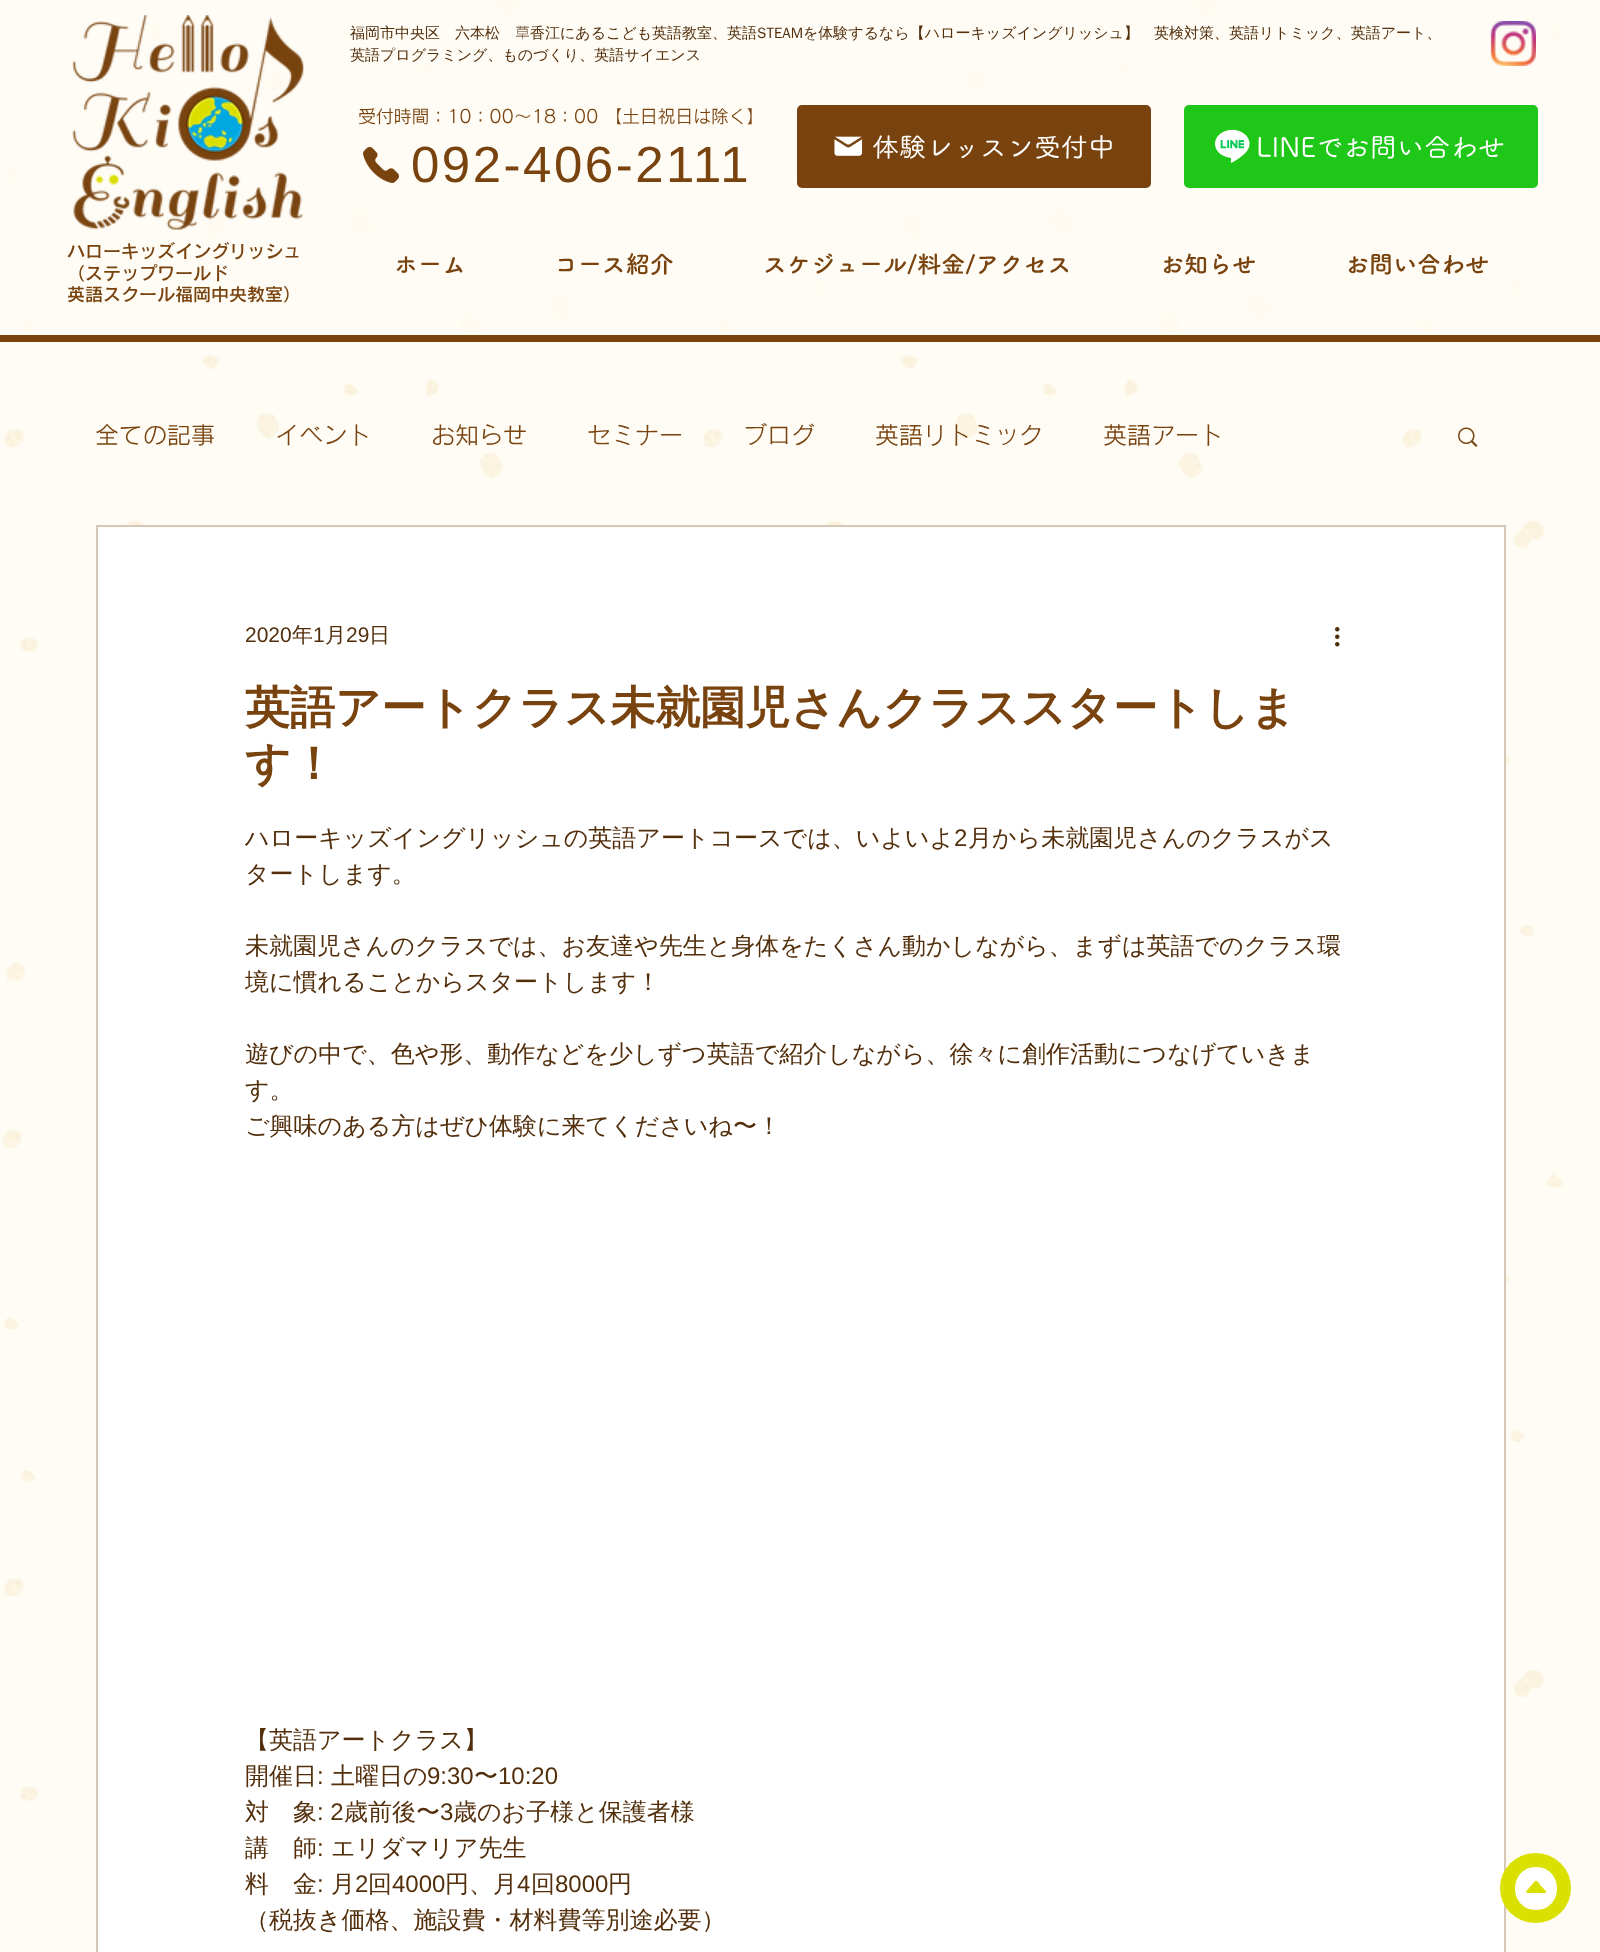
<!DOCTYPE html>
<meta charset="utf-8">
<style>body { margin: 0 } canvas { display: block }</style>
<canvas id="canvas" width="1600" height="1952"></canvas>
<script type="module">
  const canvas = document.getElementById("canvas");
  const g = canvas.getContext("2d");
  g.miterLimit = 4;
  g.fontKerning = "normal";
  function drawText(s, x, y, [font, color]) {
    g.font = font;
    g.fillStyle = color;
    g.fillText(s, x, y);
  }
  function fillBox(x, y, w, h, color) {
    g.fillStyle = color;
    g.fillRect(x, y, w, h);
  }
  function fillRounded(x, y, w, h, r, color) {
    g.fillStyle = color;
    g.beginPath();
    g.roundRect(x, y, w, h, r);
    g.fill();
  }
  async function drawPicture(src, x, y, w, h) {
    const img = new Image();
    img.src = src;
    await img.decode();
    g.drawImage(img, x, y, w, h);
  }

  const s1 = ["500 15px WenQuanYi Zen Hei", "#522E0B"];
  const s2 = ["300 15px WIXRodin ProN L", "#522E0B"];
  const s3 = ["500 18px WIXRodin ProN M", "#79430F"];
  const s4 = ["51px Liberation Sans", "#79430F"];
  const s5 = ["500 27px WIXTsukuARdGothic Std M", "#FFFFFF"];
  const s6 = ["600 18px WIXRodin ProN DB", "#79430F"];
  const s7 = ["bold 24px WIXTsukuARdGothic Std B", "#79430F"];
  const s8 = ["500 24px WIXRodin ProN M", "#79430F"];
  const s9 = ["21px Liberation Sans", "#522E0B"];
  const s10 = ["500 21px WenQuanYi Zen Hei", "#522E0B"];
  const s11 = ["bold 45px WenQuanYi Zen Hei", "#79430F"];
  const s12 = ["500 24px WenQuanYi Zen Hei", "#522E0B"];
  const s13 = ["24px Liberation Sans", "#522E0B"];

  fillBox(0, 0, 1600, 1952, "#FFFCF5");
  await drawPicture("pic1.png", 2, 0, 1598, 1914);
  fillBox(4, 0, 1596, 335, "rgba(255, 252, 245, 0.85)");
  fillBox(0, 335, 1600, 7, "#79430F");
  drawText("福岡市中央区　六本松", 350, 38, s1);
  drawText("草", 515, 38, s2);
  drawText("香江にあるこども英語教室、英語STEAMを体験するなら【ハローキッズイングリッシュ】　英検対策、英語リトミック、英語アート、", 530, 38, s1);
  drawText("英語プログラミング、ものづくり、英語サイエンス", 350, 60, s1);
  await drawPicture("pic2.png", 1490, 21, 46, 45);
  g.letterSpacing = "-0.2px";
  drawText("受付時間：10：00〜18：00 【土日祝日は除く】", 358, 123, s3);
  await drawPicture("pic3.png", 363, 147, 36, 36);
  g.letterSpacing = "2.5px";
  drawText("092-406-2111", 411, 182, s4);
  fillRounded(797, 105, 354, 83, 5, "#79430F");
  await drawPicture("pic4.png", 834, 136, 29, 20);
  g.letterSpacing = "0px";
  drawText("体験レッスン受付中", 872, 157, s5);
  fillRounded(1184, 105, 354, 83, 5, "#1EC718");
  await drawPicture("pic5.png", 1215, 129, 35, 34);
  drawText("LINEでお問い合わせ", 1256, 157, s5);
  await drawPicture("pic6.png", 72, 15, 232, 215);
  drawText("ハローキッズイングリッシュ", 67, 258, s6);
  drawText("（ステップワールド", 67, 280, s6);
  drawText("英語スクール福岡中央教室）", 67, 301, s6);
  drawText("ホーム", 394, 273, s7);
  drawText("コース紹介", 554, 273, s7);
  drawText("スケジュール/料金/アクセス", 763, 273, s7);
  drawText("お知らせ", 1160, 273, s7);
  drawText("お問い合わせ", 1345, 273, s7);
  drawText("全ての記事", 95, 444, s8);
  drawText("イベント", 275, 444, s8);
  drawText("お知らせ", 431, 444, s8);
  drawText("セミナー", 587, 444, s8);
  drawText("ブログ", 743, 444, s8);
  drawText("英語リトミック", 875, 444, s8);
  drawText("英語アート", 1103, 444, s8);
  await drawPicture("pic7.png", 1458, 427, 20, 20);
  g.fillStyle = "#FFFFFF";
  g.beginPath();
  g.rect(97, 526, 1408, 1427);
  g.fill();
  g.strokeStyle = "#D7C7B7";
  g.lineWidth = 2;
  g.stroke();
  drawText("2020", 245, 642, s9);
  drawText("年", 292, 642, s10);
  drawText("1", 313, 642, s9);
  drawText("月", 325, 642, s10);
  drawText("29", 346, 642, s9);
  drawText("日", 369, 642, s10);
  await drawPicture("pic8.png", 1335, 627, 5, 20);
  drawText("英語アートクラス未就園児さんクラススタートしま", 245, 723, s11);
  drawText("す！", 245, 779, s11);
  drawText("ハローキッズイングリッシュの英語アートコースでは、いよいよ", 245, 846, s12);
  drawText("2", 954, 846, s13);
  drawText("月から未就園児さんのクラスがス", 968, 846, s12);
  drawText("タートします。", 245, 882, s12);
  drawText("未就園児さんのクラスでは、お友達や先生と身体をたくさん動かしながら、まずは英語でのクラス環", 245, 954, s12);
  drawText("境に慣れることからスタートします！", 245, 990, s12);
  drawText("遊びの中で、色や形、動作などを少しずつ英語で紹介しながら、徐々に創作活動につなげていきま", 245, 1062, s12);
  drawText("す。", 245, 1098, s12);
  drawText("ご興味のある方はぜひ体験に来てくださいね〜！", 245, 1134, s12);
  drawText("【英語アートクラス】", 245, 1748, s12);
  drawText("開催日", 245, 1784, s12);
  drawText(":", 317, 1784, s13);
  drawText("土曜日の", 331, 1784, s12);
  drawText("9:30", 427, 1784, s13);
  drawText("〜", 474, 1784, s12);
  drawText("10:20", 498, 1784, s13);
  drawText("対　象", 245, 1820, s12);
  drawText(": 2", 317, 1820, s13);
  drawText("歳前後〜", 344, 1820, s12);
  drawText("3", 440, 1820, s13);
  drawText("歳のお子様と保護者様", 453, 1820, s12);
  drawText("講　師", 245, 1856, s12);
  drawText(":", 317, 1856, s13);
  drawText("エリダマリア先生", 331, 1856, s12);
  drawText("料　金", 245, 1892, s12);
  drawText(":", 317, 1892, s13);
  drawText("月", 331, 1892, s12);
  drawText("2", 355, 1892, s13);
  drawText("回", 368, 1892, s12);
  drawText("4000", 392, 1892, s13);
  drawText("円、月", 445, 1892, s12);
  drawText("4", 517, 1892, s13);
  drawText("回", 531, 1892, s12);
  drawText("8000", 555, 1892, s13);
  drawText("円", 608, 1892, s12);
  drawText("（税抜き価格、施設費・材料費等別途必要）", 245, 1928, s12);
  fillRounded(1500, 1853, 71, 70, 35, "#DAE000");
  g.fillStyle = "#FFFFFF";
  g.beginPath();
  g.moveTo(1536, 1867);
  g.bezierCurveTo(1508, 1867, 1508, 1910, 1536, 1910);
  g.bezierCurveTo(1564, 1910, 1564, 1867, 1536, 1867);
  g.closePath();
  g.moveTo(1545, 1893);
  g.lineTo(1530, 1893);
  g.bezierCurveTo(1524, 1893, 1526, 1892, 1529, 1888);
  g.lineTo(1535, 1881);
  g.bezierCurveTo(1537, 1879, 1541, 1886, 1541, 1886);
  g.bezierCurveTo(1542, 1887, 1549, 1893, 1545, 1893);
  g.closePath();
  g.fill();
</script>
